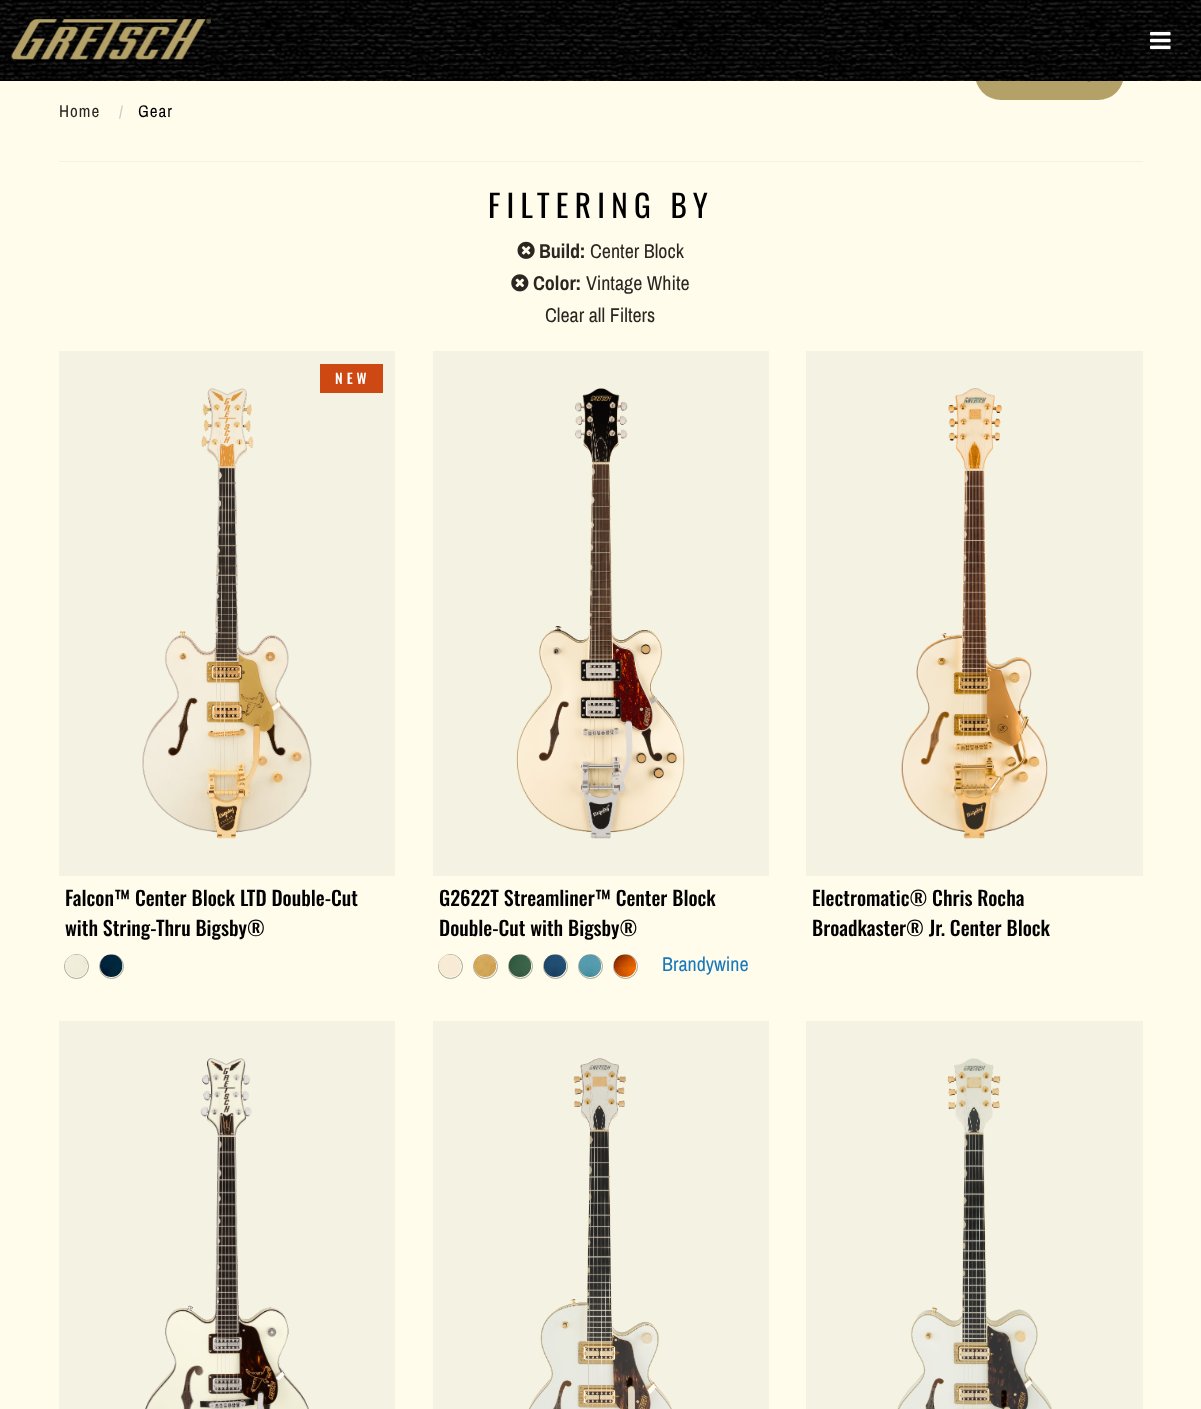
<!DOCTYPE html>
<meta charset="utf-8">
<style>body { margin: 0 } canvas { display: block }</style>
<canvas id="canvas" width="1201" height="1409"></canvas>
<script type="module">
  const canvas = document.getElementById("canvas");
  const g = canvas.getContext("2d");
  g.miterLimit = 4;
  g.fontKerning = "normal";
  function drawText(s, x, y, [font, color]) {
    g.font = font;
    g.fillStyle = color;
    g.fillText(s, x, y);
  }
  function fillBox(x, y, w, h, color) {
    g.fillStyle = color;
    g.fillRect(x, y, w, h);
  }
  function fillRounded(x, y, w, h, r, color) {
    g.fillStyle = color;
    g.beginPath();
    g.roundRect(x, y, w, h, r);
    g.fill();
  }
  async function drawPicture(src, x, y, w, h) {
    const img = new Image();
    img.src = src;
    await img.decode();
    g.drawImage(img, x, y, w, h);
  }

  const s1 = ["17px Archivo Narrow", "#2A2722"];
  const s2 = ["17px Archivo Narrow", "#CACACA"];
  const s3 = ["17px Archivo Narrow", "#000000"];
  const s4 = ["31.25px Oswald", "#000000"];
  const s5 = ["bold 20px Archivo Narrow", "#2A2722"];
  const s6 = ["20px Archivo Narrow", "#2A2722"];
  const s7 = ["500 14px Oswald", "#FFFFFF"];
  const s8 = ["500 20px Oswald", "#000000"];
  const s9 = ["20px Archivo Narrow", "#1779BA"];

  fillBox(0, 0, 1201, 1409, "#FFFCEC");
  fillRounded(975, 48, 149, 52, 26, "#B3A168");
  await drawPicture("pic1.png", 0, 0, 1201, 81);
  await drawPicture("pic2.png", 11, 19, 200, 41);
  await drawPicture("pic3.png", 1150, 31, 21, 19);
  await drawPicture("pic4.png", 1087, 81, 4, 1);
  g.letterSpacing = "1px";
  drawText("Home", 59, 117, s1);
  drawText("/", 119, 118, s2);
  drawText("Gear", 138, 117, s3);
  fillBox(59, 161, 1084, 1, "#F4F2E2");
  g.letterSpacing = "6.25px";
  drawText("FILTERING BY", 488, 218, s4);
  await drawPicture("pic5.png", 517, 241, 18, 18);
  g.letterSpacing = "0px";
  drawText("Build:", 539, 258, s5);
  drawText("Center Block", 590, 258, s6);
  await drawPicture("pic6.png", 511, 274, 18, 18);
  drawText("Color:", 533, 290, s5);
  drawText("Vintage White", 586, 290, s6);
  drawText("Clear all Filters", 545, 322, s6);
  fillBox(59, 351, 336, 525, "#F4F2E2");
  fillBox(320, 364, 63, 29, "#CE4813");
  g.letterSpacing = "4px";
  drawText("NEW", 335, 384, s7);
  await drawPicture("pic7.png", 142, 388, 170, 451);
  g.letterSpacing = "0px";
  drawText("Falcon™ Center Block LTD Double-Cut", 65, 906, s8);
  drawText("with String-Thru Bigsby®", 65, 936, s8);
  g.beginPath();
  g.arc(76.5, 966.5, 12, 0, Math.PI * 2);
  g.strokeStyle = "#A8A596";
  g.stroke();
  await drawPicture("pic8.png", 65, 954, 22, 23);
  g.beginPath();
  g.arc(111.5, 966.5, 12, 0, Math.PI * 2);
  g.stroke();
  await drawPicture("pic9.png", 100, 954, 23, 23);
  fillBox(433, 351, 336, 525, "#F4F2E2");
  await drawPicture("pic10.png", 516, 388, 169, 451);
  drawText("G2622T Streamliner™ Center Block", 439, 906, s8);
  drawText("Double-Cut with Bigsby®", 439, 936, s8);
  g.beginPath();
  g.arc(450.5, 966.5, 12, 0, Math.PI * 2);
  g.stroke();
  await drawPicture("pic11.png", 438, 954, 23, 23);
  g.beginPath();
  g.arc(485.5, 966.5, 12, 0, Math.PI * 2);
  g.stroke();
  await drawPicture("pic12.png", 473, 954, 24, 23);
  g.beginPath();
  g.arc(520.5, 966.5, 12, 0, Math.PI * 2);
  g.stroke();
  await drawPicture("pic13.png", 508, 954, 24, 23);
  g.beginPath();
  g.arc(555.5, 966.5, 12, 0, Math.PI * 2);
  g.stroke();
  await drawPicture("pic14.png", 543, 954, 24, 23);
  g.beginPath();
  g.arc(590.5, 966.5, 12, 0, Math.PI * 2);
  g.stroke();
  await drawPicture("pic15.png", 578, 954, 24, 23);
  g.beginPath();
  g.arc(625.5, 966.5, 12, 0, Math.PI * 2);
  g.stroke();
  await drawPicture("pic16.png", 613, 954, 24, 23);
  drawText("Brandywine", 662, 971, s9);
  fillBox(806, 351, 337, 525, "#F4F2E2");
  await drawPicture("pic17.png", 901, 388, 147, 451);
  drawText("Electromatic® Chris Rocha", 812, 906, s8);
  drawText("Broadkaster® Jr. Center Block", 812, 936, s8);
  fillBox(59, 1021, 336, 388, "#F4F2E2");
  await drawPicture("pic18.png", 145, 1058, 164, 351);
  fillBox(433, 1021, 336, 388, "#F4F2E2");
  await drawPicture("pic19.png", 528, 1058, 144, 351);
  fillBox(806, 1021, 337, 388, "#F4F2E2");
  await drawPicture("pic20.png", 897, 1058, 155, 351);
</script>
